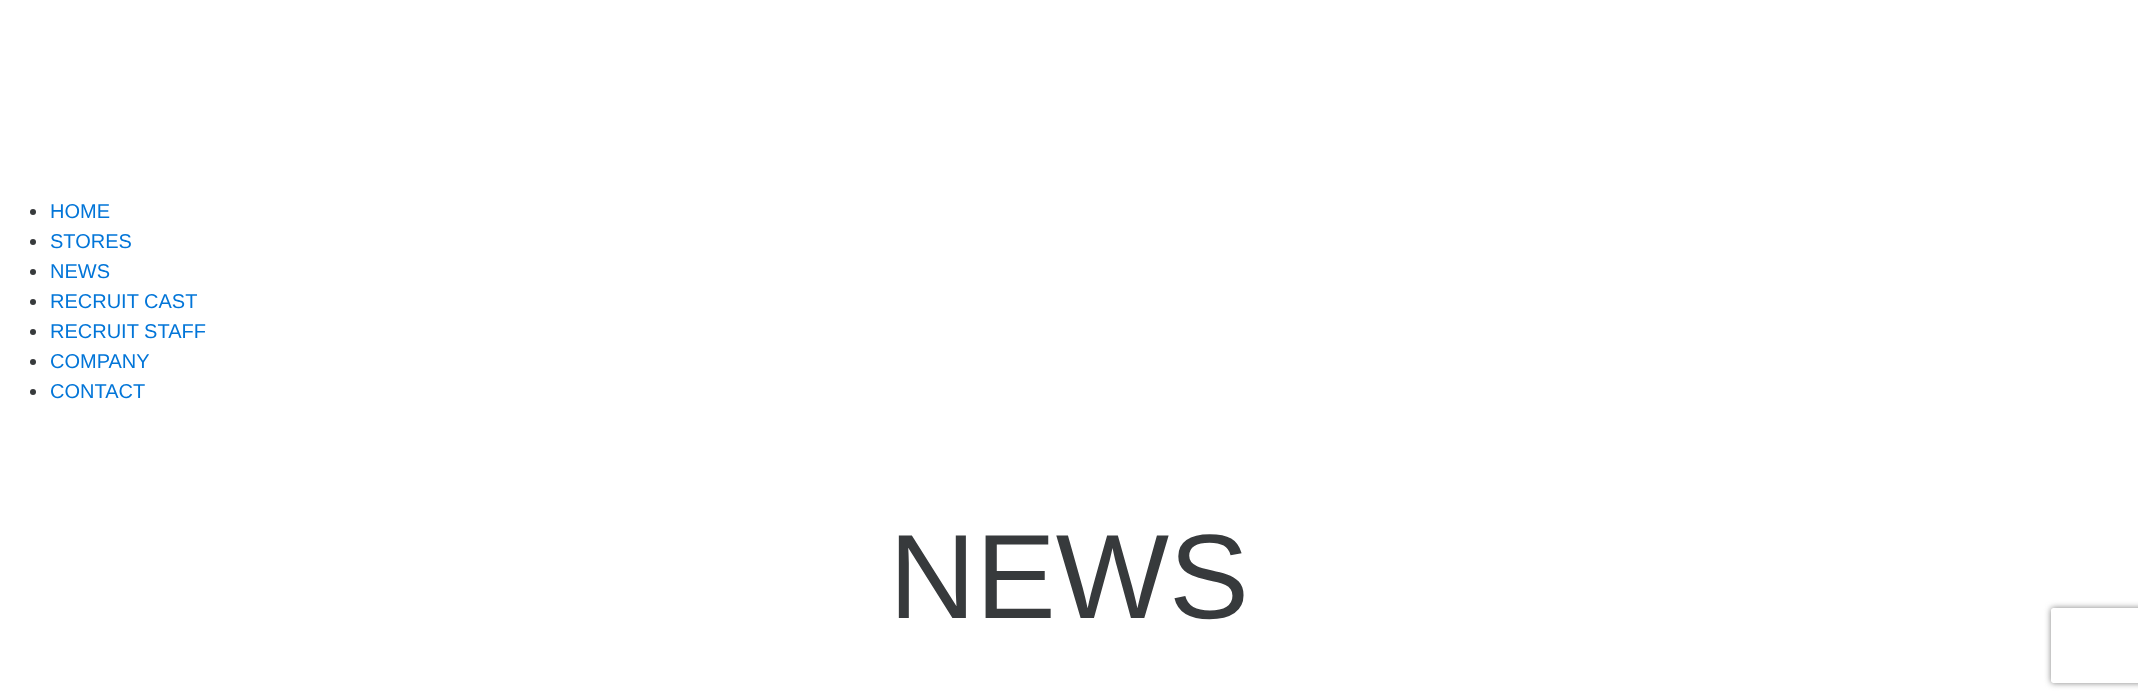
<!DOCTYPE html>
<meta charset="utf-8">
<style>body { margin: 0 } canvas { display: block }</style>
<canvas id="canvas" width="2138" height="699"></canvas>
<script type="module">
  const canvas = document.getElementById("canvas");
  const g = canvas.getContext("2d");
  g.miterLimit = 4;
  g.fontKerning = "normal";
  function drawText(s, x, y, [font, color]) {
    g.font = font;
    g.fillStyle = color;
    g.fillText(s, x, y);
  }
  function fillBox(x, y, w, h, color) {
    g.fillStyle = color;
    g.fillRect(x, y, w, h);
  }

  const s1 = ["20px Liberation Sans", "#0275D8"];
  const s2 = ["120px Liberation Sans", "#373A3C"];

  fillBox(0, 0, 2138, 699, "#FFFFFF");
  g.fillStyle = "#373A3C";
  g.beginPath();
  g.arc(33, 212, 3, 0, Math.PI * 2);
  g.fill();
  drawText("HOME", 50, 218, s1);
  g.fillStyle = "#373A3C";
  g.beginPath();
  g.arc(33, 242, 3, 0, Math.PI * 2);
  g.fill();
  drawText("STORES", 50, 248, s1);
  g.fillStyle = "#373A3C";
  g.beginPath();
  g.arc(33, 272, 3, 0, Math.PI * 2);
  g.fill();
  drawText("NEWS", 50, 278, s1);
  g.fillStyle = "#373A3C";
  g.beginPath();
  g.arc(33, 302, 3, 0, Math.PI * 2);
  g.fill();
  drawText("RECRUIT CAST", 50, 308, s1);
  g.fillStyle = "#373A3C";
  g.beginPath();
  g.arc(33, 332, 3, 0, Math.PI * 2);
  g.fill();
  drawText("RECRUIT STAFF", 50, 338, s1);
  g.fillStyle = "#373A3C";
  g.beginPath();
  g.arc(33, 362, 3, 0, Math.PI * 2);
  g.fill();
  drawText("COMPANY", 50, 368, s1);
  g.fillStyle = "#373A3C";
  g.beginPath();
  g.arc(33, 392, 3, 0, Math.PI * 2);
  g.fill();
  drawText("CONTACT", 50, 398, s1);
  drawText("NEWS", 889, 618, s2);
  g.save();
  g.beginPath();
  g.moveTo(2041, 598);
  g.lineTo(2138, 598);
  g.lineTo(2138, 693);
  g.lineTo(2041, 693);
  g.closePath();
  g.moveTo(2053.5, 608);
  g.lineTo(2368.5, 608);
  g.bezierCurveTo(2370, 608, 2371, 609, 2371, 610.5);
  g.lineTo(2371, 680.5);
  g.bezierCurveTo(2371, 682, 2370, 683, 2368.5, 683);
  g.lineTo(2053.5, 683);
  g.bezierCurveTo(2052, 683, 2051, 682, 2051, 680.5);
  g.lineTo(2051, 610.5);
  g.bezierCurveTo(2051, 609, 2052, 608, 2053.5, 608);
  g.closePath();
  g.clip("evenodd");
  g.fillStyle = "#808080";
  g.filter = "blur(3px)";
  g.beginPath();
  g.roundRect(2051, 608, 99, 75, 2.5);
  g.fill();
  g.filter = "none";
  g.restore();
</script>
